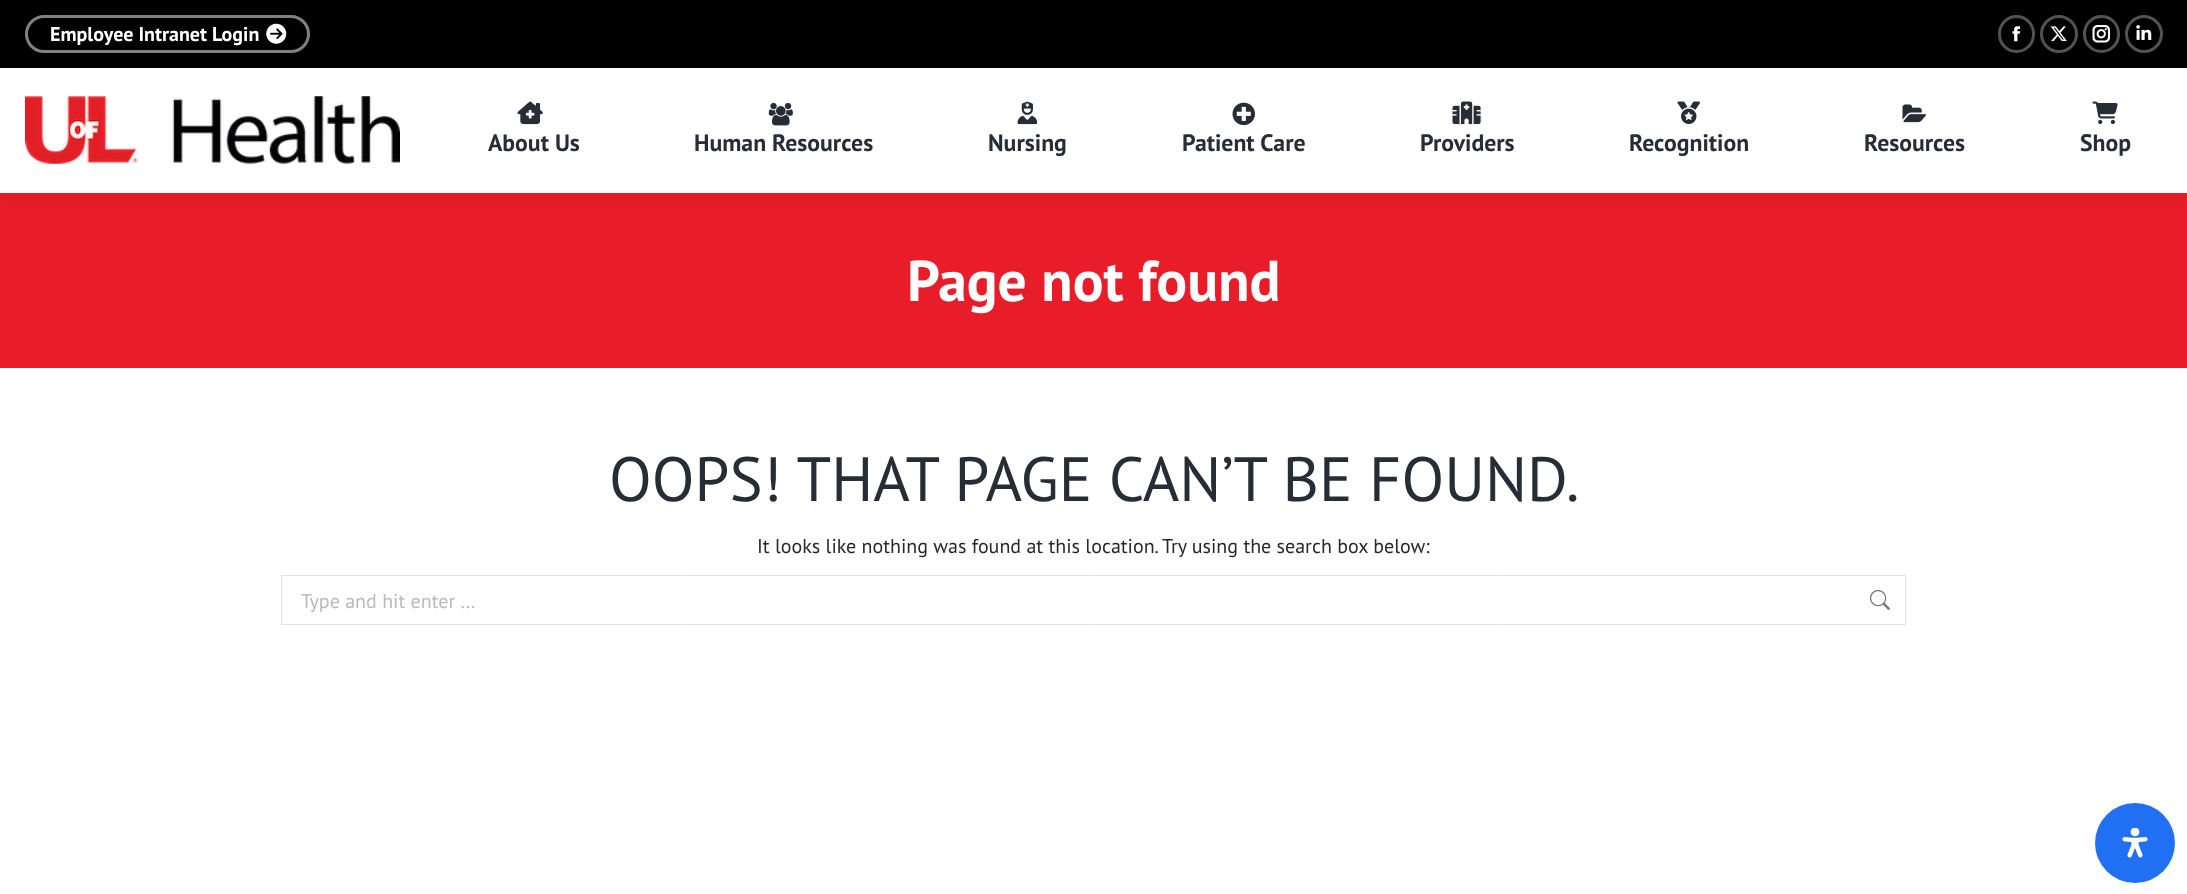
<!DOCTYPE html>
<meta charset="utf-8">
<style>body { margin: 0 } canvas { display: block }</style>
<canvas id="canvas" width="2187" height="894"></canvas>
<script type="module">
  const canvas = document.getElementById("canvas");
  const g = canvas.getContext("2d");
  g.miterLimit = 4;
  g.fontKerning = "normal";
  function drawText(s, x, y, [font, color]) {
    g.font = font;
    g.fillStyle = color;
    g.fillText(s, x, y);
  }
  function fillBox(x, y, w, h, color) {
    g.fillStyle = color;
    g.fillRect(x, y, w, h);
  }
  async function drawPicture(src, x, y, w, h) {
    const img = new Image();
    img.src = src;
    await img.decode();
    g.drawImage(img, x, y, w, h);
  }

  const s1 = ["bold 20px PT Sans", "#FFFFFF"];
  const s2 = ["bold 23.75px PT Sans", "#262D37"];
  const s3 = ["bold 57.5px PT Sans", "#FFFFFF"];
  const s4 = ["62.5px PT Sans", "#262D37"];
  const s5 = ["20px PT Sans", "#282828"];
  const s6 = ["20px PT Sans", "#BABABA"];

  fillBox(0, 0, 2187, 894, "#FFFFFF");
  fillBox(0, 193, 2187, 175, "#E81D29");
  g.fillStyle = "rgba(0, 0, 0, 0.07)";
  g.filter = "blur(9.5px)";
  g.beginPath();
  g.rect(-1, -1, 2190, 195);
  g.fill();
  g.filter = "none";
  fillBox(0, 68, 2187, 125, "#FFFFFF");
  fillBox(0, 0, 2187, 68, "#000000");
  g.beginPath();
  g.roundRect(26.5, 16.5, 282, 35, 17.5);
  g.strokeStyle = "#808080";
  g.lineWidth = 3;
  g.stroke();
  drawText("Employee Intranet Login", 50, 41, s1);
  await drawPicture("pic1.png", 266, 23, 21, 21);
  g.beginPath();
  g.roundRect(1999.5, 16.5, 34, 35, 17);
  g.strokeStyle = "#525252";
  g.stroke();
  await drawPicture("pic2.png", 2012, 26, 8, 16);
  g.beginPath();
  g.arc(2059, 34, 17.5, 0, Math.PI * 2);
  g.stroke();
  await drawPicture("pic3.png", 2050, 26, 17, 16);
  g.beginPath();
  g.roundRect(2084.5, 16.5, 34, 35, 17);
  g.stroke();
  await drawPicture("pic4.png", 2092, 25, 18, 18);
  g.beginPath();
  g.arc(2144, 34, 17.5, 0, Math.PI * 2);
  g.stroke();
  await drawPicture("pic5.png", 2136, 25, 16, 15);
  await drawPicture("pic6.png", 25, 96, 375, 68);
  await drawPicture("pic7.png", 517, 101, 26, 24);
  drawText("About Us", 488, 151, s2);
  await drawPicture("pic8.png", 768, 102, 25, 24);
  drawText("Human Resources", 694, 151, s2);
  await drawPicture("pic9.png", 1017, 101, 21, 24);
  drawText("Nursing", 988, 151, s2);
  await drawPicture("pic10.png", 1232, 102, 23, 24);
  drawText("Patient Care", 1182, 151, s2);
  await drawPicture("pic11.png", 1452, 101, 29, 24);
  drawText("Providers", 1420, 151, s2);
  await drawPicture("pic12.png", 1677, 101, 23, 24);
  drawText("Recognition", 1629, 151, s2);
  await drawPicture("pic13.png", 1902, 104, 25, 19);
  drawText("Resources", 1864, 151, s2);
  await drawPicture("pic14.png", 2092, 101, 26, 23);
  drawText("Shop", 2080, 151, s2);
  drawText("Page not found", 907, 301, s3);
  drawText("OOPS! THAT PAGE CAN’T BE FOUND.", 609, 501, s4);
  drawText("It looks like nothing was found at this location. Try using the search box below:", 757, 553, s5);
  g.beginPath();
  g.roundRect(281.5, 575.5, 1624, 49, 0.5);
  g.strokeStyle = "#E1E1E1";
  g.lineWidth = 1;
  g.stroke();
  drawText("Type and hit enter …", 301, 608, s6);
  await drawPicture("pic15.png", 1870, 590, 20, 20);
  g.fillStyle = "#216FF3";
  g.beginPath();
  g.arc(2135, 843, 40, 0, Math.PI * 2);
  g.fill();
  await drawPicture("pic16.png", 2122, 828, 26, 30);
</script>
